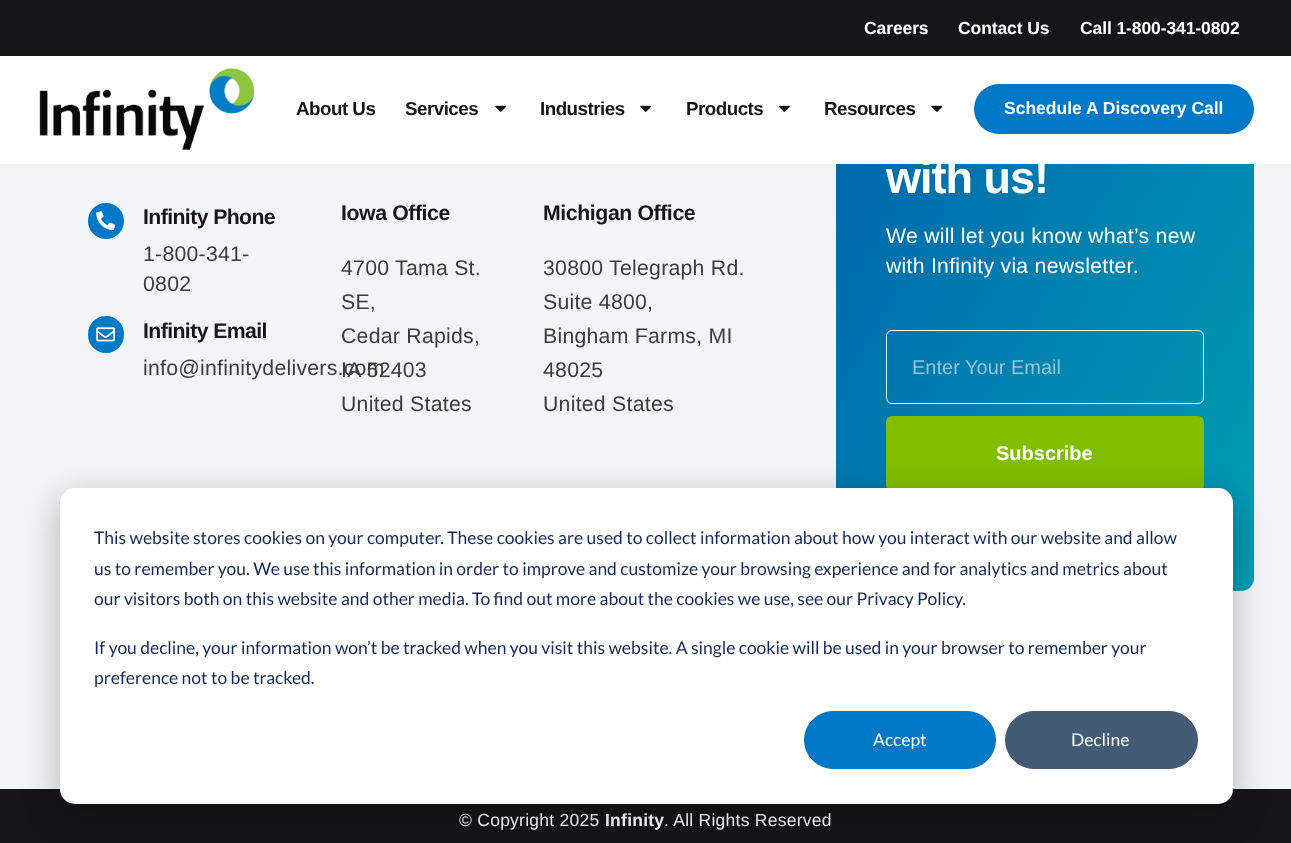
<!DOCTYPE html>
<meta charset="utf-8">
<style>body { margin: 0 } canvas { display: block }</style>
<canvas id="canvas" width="1291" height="843"></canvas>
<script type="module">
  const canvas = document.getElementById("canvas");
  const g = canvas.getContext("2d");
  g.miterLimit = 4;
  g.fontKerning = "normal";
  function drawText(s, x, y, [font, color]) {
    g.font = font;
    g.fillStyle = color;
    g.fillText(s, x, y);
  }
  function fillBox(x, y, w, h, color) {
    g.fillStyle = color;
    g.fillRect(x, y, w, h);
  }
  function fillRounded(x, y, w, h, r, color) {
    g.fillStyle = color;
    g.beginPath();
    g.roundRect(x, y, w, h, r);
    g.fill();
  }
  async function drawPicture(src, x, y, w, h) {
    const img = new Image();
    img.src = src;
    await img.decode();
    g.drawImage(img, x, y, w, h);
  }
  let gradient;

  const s1 = ["bold 17.5px Liberation Sans", "#FFFFFF"];
  const s2 = ["bold 18.75px Liberation Sans", "#161619"];
  const s3 = ["bold 21.25px Liberation Sans", "#161619"];
  const s4 = ["21.25px Liberation Sans", "#3C3C3C"];
  const s5 = ["bold 45px Liberation Sans", "#FFFFFF"];
  const s6 = ["21.25px Liberation Sans", "#FFFFFF"];
  const s7 = ["20px Liberation Sans", "#91C6D9"];
  const s8 = ["bold 20px Liberation Sans", "#FFFFFF"];
  const s9 = ["17.5px Liberation Sans", "#FFFFFF"];
  const s10 = ["17.5px Lato", "#15295A"];
  const s11 = ["17.5px Lato", "#FFFFFF"];

  fillBox(0, 0, 1291, 843, "#161619");
  fillBox(0, 164, 1291, 625, "#F2F5F5");
  gradient = g.createLinearGradient(733, 51, 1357, 412);
  gradient.addColorStop(0, "#005AAA");
  gradient.addColorStop(1, "#00A0B4");
  g.fillStyle = gradient;
  g.beginPath();
  g.roundRect(836, -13, 418, 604, 13);
  g.fill();
  fillBox(836, 0, 418, 56, "#161619");
  g.letterSpacing = "-0.1px";
  drawText("Careers", 864, 34, s1);
  drawText("Contact Us", 958, 34, s1);
  drawText("Call 1-800-341-0802", 1080, 34, s1);
  fillBox(0, 56, 1291, 108, "#FFFFFF");
  await drawPicture("pic1.png", 39, 68, 216, 82);
  g.letterSpacing = "-0.5px";
  drawText("About Us", 296, 115, s2);
  drawText("Services", 405, 115, s2);
  await drawPicture("pic2.png", 495, 105, 11, 7);
  drawText("Industries", 540, 115, s2);
  await drawPicture("pic2.png", 640, 105, 11, 7);
  drawText("Products", 686, 115, s2);
  await drawPicture("pic3.png", 779, 105, 11, 7);
  drawText("Resources", 824, 115, s2);
  await drawPicture("pic4.png", 931, 105, 12, 7);
  fillRounded(974, 84, 280, 50, 25, "#0078C8");
  g.letterSpacing = "0px";
  drawText("Schedule A Discovery Call", 1004, 114, s1);
  g.fillStyle = "#0078C8";
  g.beginPath();
  g.arc(106, 221, 18, 0, Math.PI * 2);
  g.fill();
  await drawPicture("pic5.png", 96, 211, 19, 19);
  g.letterSpacing = "-0.6px";
  drawText("Infinity Phone", 143, 224, s3);
  g.letterSpacing = "0.25px";
  drawText("1-800-341-", 143, 261, s4);
  drawText("0802", 143, 291, s4);
  fillRounded(88, 316, 36, 37, 18, "#0078C8");
  await drawPicture("pic6.png", 96, 327, 19, 15);
  g.letterSpacing = "-0.6px";
  drawText("Infinity Email", 143, 338, s3);
  g.letterSpacing = "0.25px";
  drawText("info@infinitydelivers.com", 143, 375, s4);
  g.letterSpacing = "-0.4px";
  drawText("Iowa Office", 341, 220, s3);
  g.letterSpacing = "0.25px";
  drawText("4700 Tama St.", 341, 275, s4);
  drawText("SE,", 341, 309, s4);
  drawText("Cedar Rapids,", 341, 343, s4);
  drawText("IA 52403", 341, 377, s4);
  drawText("United States", 341, 411, s4);
  g.letterSpacing = "-0.4px";
  drawText("Michigan Office", 543, 220, s3);
  g.letterSpacing = "0.25px";
  drawText("30800 Telegraph Rd.", 543, 275, s4);
  drawText("Suite 4800,", 543, 309, s4);
  drawText("Bingham Farms, MI", 543, 343, s4);
  drawText("48025", 543, 377, s4);
  drawText("United States", 543, 411, s4);
  g.letterSpacing = "-1px";
  drawText("with us!", 886, 193, s5);
  g.letterSpacing = "0.25px";
  drawText("We will let you know what’s new", 886, 243, s6);
  drawText("with Infinity via newsletter.", 886, 273, s6);
  g.beginPath();
  g.roundRect(886.5, 330.5, 317, 73, 5.5);
  g.strokeStyle = "#F2F5F5";
  g.stroke();
  g.letterSpacing = "0px";
  drawText("Enter Your Email", 912, 374, s7);
  fillRounded(886, 416, 318, 75, 6, "#82BE00");
  drawText("Subscribe", 996, 460, s8);
  g.letterSpacing = "0.25px";
  drawText("© Copyright 2025", 459, 826, s9);
  drawText("Infinity", 605, 826, s1);
  drawText(". All Rights Reserved", 664, 826, s9);
  g.fillStyle = "rgba(0, 0, 0, 0.28)";
  g.filter = "blur(17.5px)";
  g.beginPath();
  g.roundRect(60, 498, 1173, 316, 15);
  g.fill();
  g.filter = "none";
  fillRounded(60, 488, 1173, 316, 15, "#FFFFFF");
  g.letterSpacing = "0px";
  drawText("This website stores cookies on your computer. These cookies are used to collect information about how you interact with our website and allow", 94, 544, s10);
  drawText("us to remember you. We use this information in order to improve and customize your browsing experience and for analytics and metrics about", 94, 575, s10);
  drawText("our visitors both on this website and other media. To find out more about the cookies we use, see our Privacy Policy.", 94, 605, s10);
  drawText("If you decline, your information won’t be tracked when you visit this website. A single cookie will be used in your browser to remember your", 94, 654, s10);
  drawText("preference not to be tracked.", 94, 684, s10);
  g.fillStyle = "#0078C8";
  g.beginPath();
  g.roundRect(804.5, 711.5, 191, 57, 28.5);
  g.fill();
  g.strokeStyle = "#0078C8";
  g.stroke();
  drawText("Accept", 873, 746, s11);
  g.fillStyle = "#425B76";
  g.beginPath();
  g.roundRect(1005.5, 711.5, 192, 57, 28.5);
  g.fill();
  g.strokeStyle = "#425B76";
  g.stroke();
  drawText("Decline", 1071, 746, s11);
</script>
